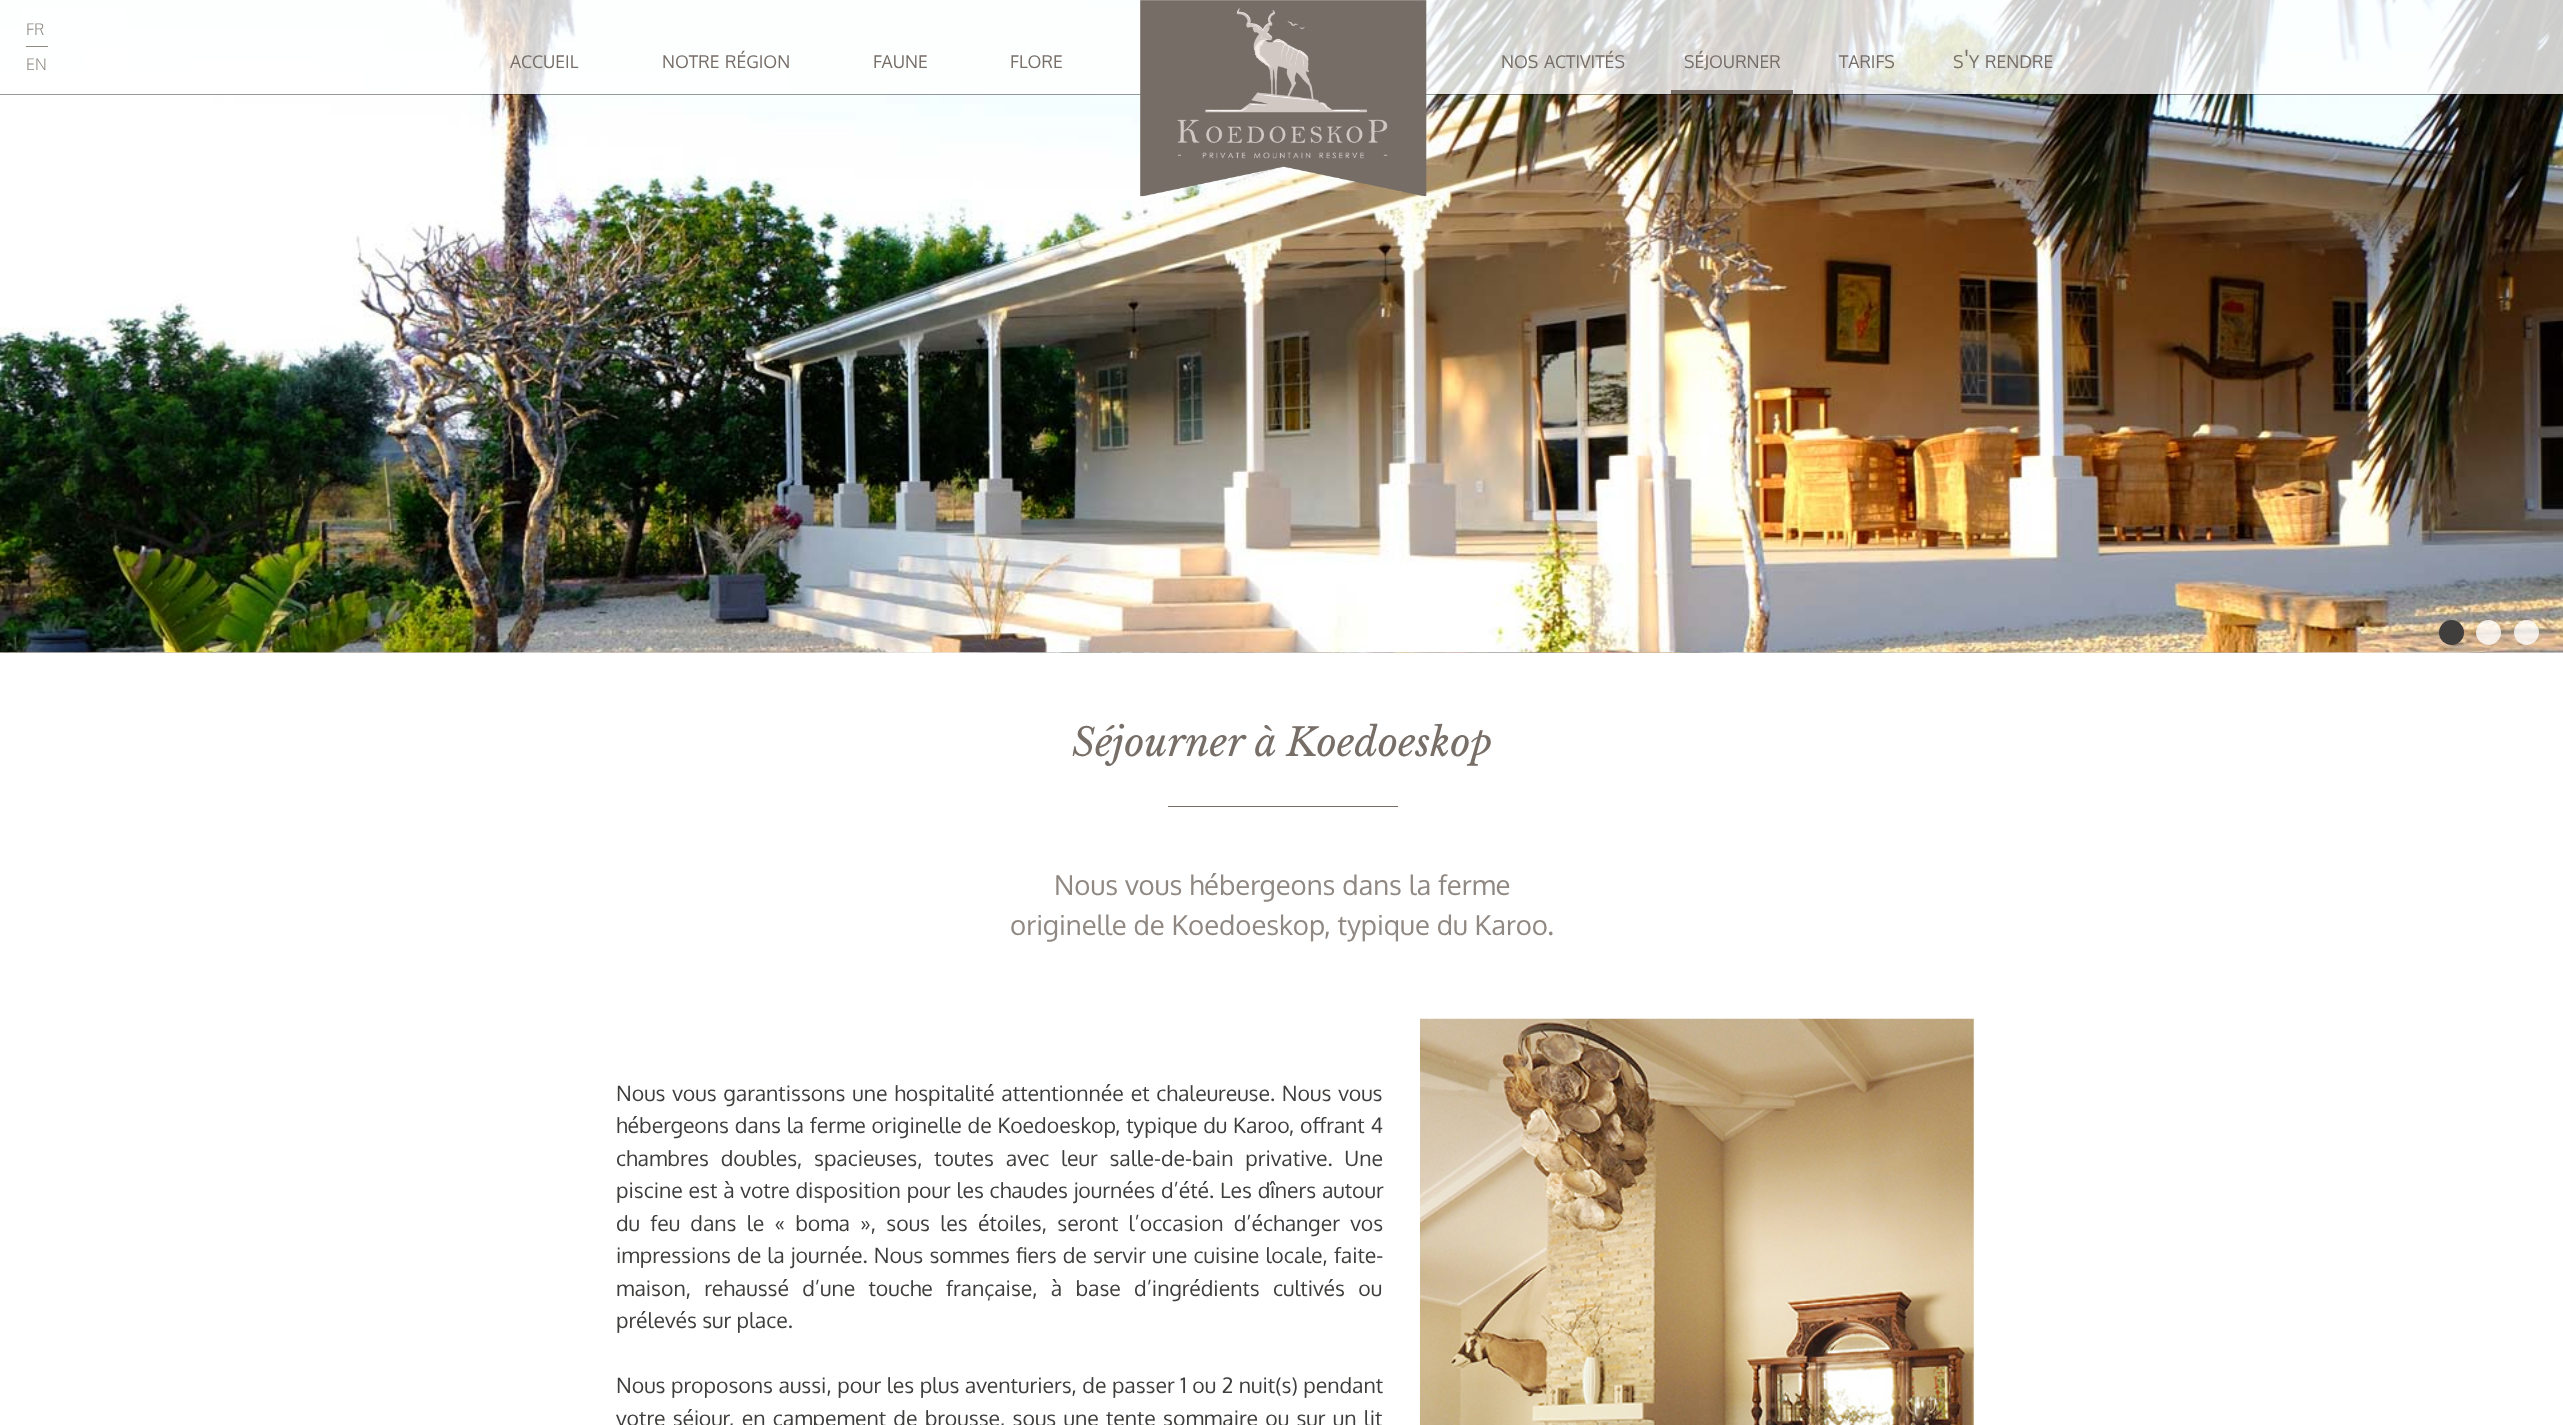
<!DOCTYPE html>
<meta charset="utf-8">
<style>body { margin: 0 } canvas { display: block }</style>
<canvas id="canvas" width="2563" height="1425"></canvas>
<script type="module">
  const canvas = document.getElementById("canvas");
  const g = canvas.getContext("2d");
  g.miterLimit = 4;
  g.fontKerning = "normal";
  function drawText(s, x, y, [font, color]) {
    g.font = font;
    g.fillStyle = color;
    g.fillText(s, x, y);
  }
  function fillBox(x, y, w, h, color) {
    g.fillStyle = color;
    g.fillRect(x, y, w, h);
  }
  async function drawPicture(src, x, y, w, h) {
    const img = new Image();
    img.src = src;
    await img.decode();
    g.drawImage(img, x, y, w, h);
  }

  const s1 = ["300 16px Oxygen", "#908882"];
  const s2 = ["17.5px Oxygen", "#776E68"];
  const s3 = ["25px Oxygen", "#776E68"];
  const s4 = ["italic 38.75px Libre Baskerville", "#776E68"];
  const s5 = ["27.5px Oxygen", "#908882"];
  const s6 = ["21.25px Oxygen", "#3F3E3D"];

  fillBox(0, 0, 2563, 1425, "#FFFFFF");
  await drawPicture("pic3.png", 0, 652, 2563, 1);
  await drawPicture("pic4.png", 0, 652, 2563, 1);
  await drawPicture("pic2.png", 0, 0, 2563, 653);
  g.save();
  g.beginPath();
  g.moveTo(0, 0);
  g.lineTo(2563, 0);
  g.lineTo(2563, 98);
  g.lineTo(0, 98);
  g.closePath();
  g.moveTo(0, 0);
  g.lineTo(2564, 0);
  g.lineTo(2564, 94);
  g.lineTo(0, 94);
  g.closePath();
  g.clip("evenodd");
  g.fillStyle = "rgba(0, 0, 0, 0.4)";
  g.filter = "blur(0.5px)";
  g.beginPath();
  g.rect(0, 1, 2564, 94);
  g.fill();
  g.filter = "none";
  g.restore();
  fillBox(0, 0, 2563, 94, "rgba(255, 255, 255, 0.8)");
  drawText("FR", 26, 35, s1);
  fillBox(26, 46, 22, 1, "#908882");
  drawText("EN", 26, 70, s1);
  await drawPicture("pic1.png", 1140, 0, 287, 197);
  drawText("ACCUEIL", 510, 68, s2);
  drawText("NOTRE", 662, 68, s2);
  drawText("RÉGION", 725, 68, s2);
  drawText("FAUNE", 873, 68, s2);
  drawText("FLORE", 1010, 68, s2);
  drawText("NOS", 1501, 68, s2);
  drawText("ACTIVITÉS", 1544, 68, s2);
  drawText("SÉJOURNER", 1684, 68, s2);
  drawText("TARIFS", 1839, 68, s2);
  drawText("'", 1964, 68, s3);
  drawText("S", 1953, 68, s2);
  drawText("Y", 1969, 68, s2);
  drawText("RENDRE", 1985, 68, s2);
  fillBox(1671, 90, 122, 4, "#776E68");
  g.fillStyle = "#3F3E3D";
  g.beginPath();
  g.arc(2451.5, 632.5, 12.5, 0, Math.PI * 2);
  g.fill();
  g.fillStyle = "rgba(255, 255, 255, 0.8)";
  g.beginPath();
  g.arc(2488.5, 632.5, 12.5, 0, Math.PI * 2);
  g.fill();
  g.beginPath();
  g.arc(2526.5, 632.5, 12.5, 0, Math.PI * 2);
  g.fill();
  drawText("Séjourner à Koedoeskop", 1072, 756, s4);
  fillBox(1168, 806, 230, 1, "#776E68");
  drawText("Nous vous hébergeons dans la ferme", 1054, 895, s5);
  drawText("originelle de Koedoeskop, typique du Karoo.", 1010, 935, s5);
  g.wordSpacing = "1.5px";
  drawText("Nous vous garantissons une hospitalité attentionnée et chaleureuse. Nous vous", 616, 1101, s6);
  g.wordSpacing = "0.5px";
  drawText("hébergeons dans la ferme originelle de Koedoeskop, typique du Karoo, offrant 4", 616, 1133, s6);
  g.wordSpacing = "6.5px";
  drawText("chambres doubles, spacieuses, toutes avec leur salle-de-bain privative. Une", 616, 1166, s6);
  g.wordSpacing = "0.5px";
  drawText("piscine est à votre disposition pour les chaudes journées d’été. Les dîners autour", 616, 1198, s6);
  g.wordSpacing = "5px";
  drawText("du feu dans le « boma », sous les étoiles, seront l’occasion d’échanger vos", 616, 1231, s6);
  g.wordSpacing = "0.9px";
  drawText("impressions de la journée. Nous sommes fiers de servir une cuisine locale, faite-", 616, 1263, s6);
  g.wordSpacing = "8px";
  drawText("maison, rehaussé d’une touche française, à base d’ingrédients cultivés ou", 616, 1296, s6);
  g.wordSpacing = "0px";
  drawText("prélevés sur place.", 616, 1328, s6);
  g.wordSpacing = "0.25px";
  drawText("Nous proposons aussi, pour les plus aventuriers, de passer 1 ou 2 nuit(s) pendant", 616, 1393, s6);
  g.wordSpacing = "2px";
  drawText("votre séjour, en campement de brousse, sous une tente sommaire ou sur un lit", 616, 1426, s6);
  await drawPicture("pic5.png", 1420, 1018, 554, 407);
</script>
